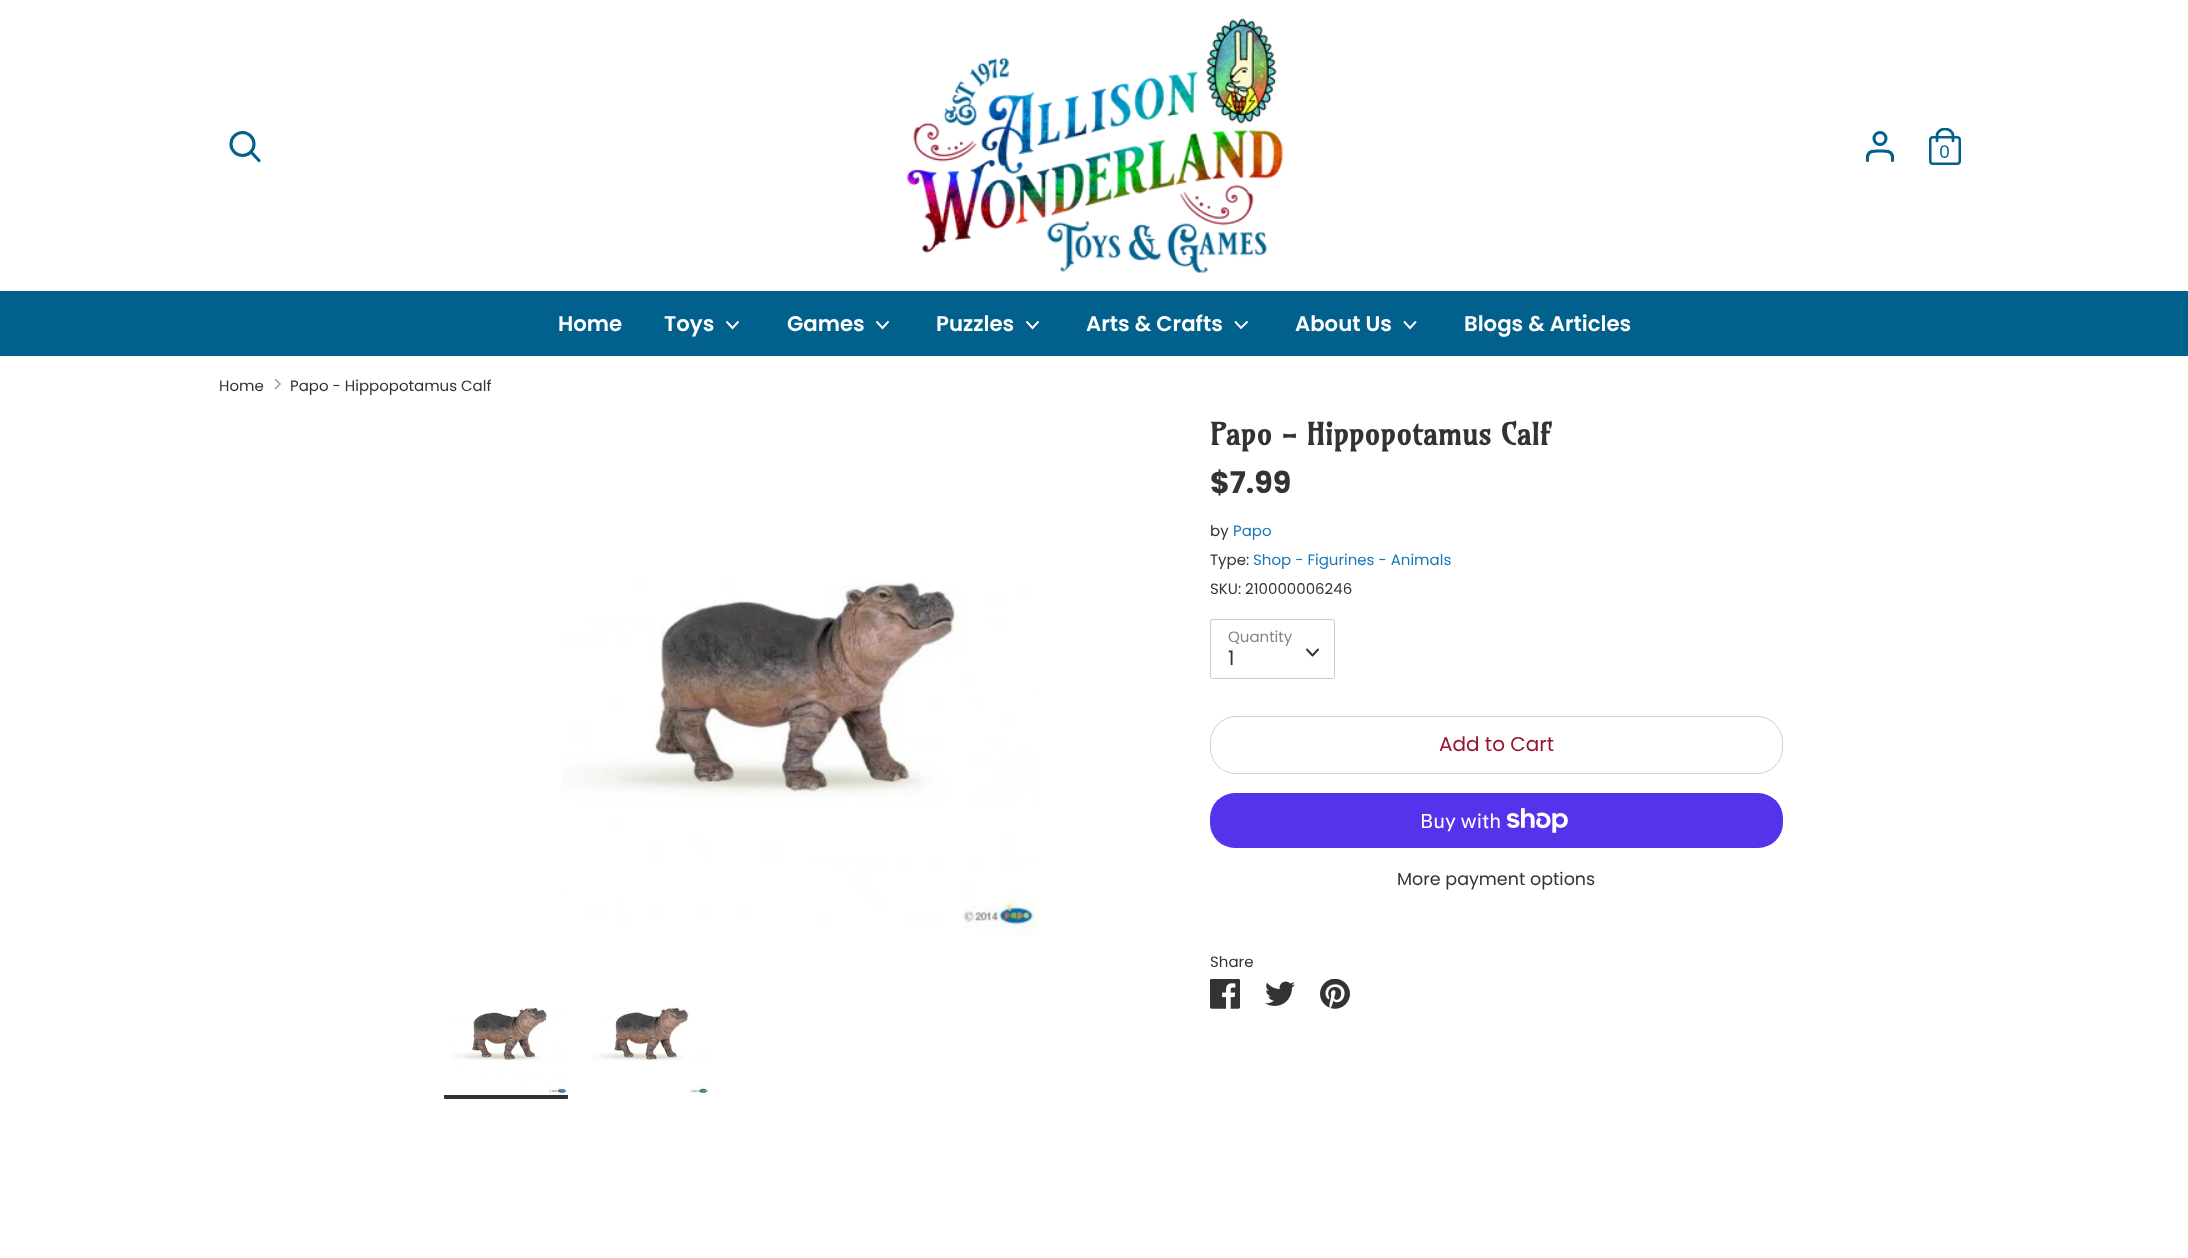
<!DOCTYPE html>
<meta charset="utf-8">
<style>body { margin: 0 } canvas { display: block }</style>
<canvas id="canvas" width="2188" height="1258"></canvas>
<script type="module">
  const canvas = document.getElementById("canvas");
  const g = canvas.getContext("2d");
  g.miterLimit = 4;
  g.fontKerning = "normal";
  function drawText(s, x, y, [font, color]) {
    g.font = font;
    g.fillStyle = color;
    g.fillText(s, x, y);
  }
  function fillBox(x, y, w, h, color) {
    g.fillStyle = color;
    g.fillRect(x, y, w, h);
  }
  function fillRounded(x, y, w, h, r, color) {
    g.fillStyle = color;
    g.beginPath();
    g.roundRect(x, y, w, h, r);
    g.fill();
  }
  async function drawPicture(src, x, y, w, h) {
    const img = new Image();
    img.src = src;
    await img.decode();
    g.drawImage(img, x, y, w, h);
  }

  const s1 = ["17.5px Poppins", "#02608D"];
  const s2 = ["600 21.25px Poppins", "#FFFFFF"];
  const s3 = ["15px Poppins", "#333333"];
  const s4 = ["bold 30px Amarante", "#333333"];
  const s5 = ["bold 30px Poppins", "#333333"];
  const s6 = ["15px Poppins", "#1878B9"];
  const s7 = ["15px Poppins", "#858585"];
  const s8 = ["20px Poppins", "#333333"];
  const s9 = ["20px Poppins", "#96162B"];
  const s10 = ["20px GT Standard", "#FFFFFF"];
  const s11 = ["17.5px Poppins", "#333333"];

  fillBox(0, 0, 2188, 1258, "#FFFFFF");
  g.beginPath();
  g.arc(242.5, 144, 11.5, 0, Math.PI * 2);
  g.strokeStyle = "#02608D";
  g.lineWidth = 3.1;
  g.stroke();
  g.beginPath();
  g.moveTo(259, 160.5);
  g.lineTo(251, 152);
  g.lineCap = "round";
  g.stroke();
  await drawPicture("pic1.png", 907, 18, 376, 255);
  g.beginPath();
  g.moveTo(1892.5, 160.5);
  g.lineTo(1892.5, 156);
  g.bezierCurveTo(1891, 150, 1884.5, 151, 1880, 151);
  g.bezierCurveTo(1875.5, 151, 1869, 150, 1867.5, 156);
  g.lineTo(1867.5, 160.5);
  g.stroke();
  g.beginPath();
  g.arc(1880, 138.5, 6, 0, Math.PI * 2);
  g.stroke();
  g.beginPath();
  g.roundRect(1930.25, 137.25, 29.5, 26.5, 2.75);
  g.lineWidth = 2.5;
  g.stroke();
  g.save();
  g.beginPath();
  g.rect(1926, 128, 38, 37);
  g.clip();
  g.beginPath();
  g.moveTo(1937, 141);
  g.lineTo(1937, 135.5);
  g.bezierCurveTo(1937, 132, 1940.5, 129, 1945, 129);
  g.bezierCurveTo(1949.5, 129, 1953, 132, 1953, 135.5);
  g.lineTo(1953, 141);
  g.lineWidth = 2.7;
  g.stroke();
  g.restore();
  drawText("0", 1939, 158, s1);
  fillBox(0, 291, 2188, 65, "#02608D");
  drawText("Home", 558, 331, s2);
  drawText("Toys", 664, 331, s2);
  g.beginPath();
  g.moveTo(727, 322);
  g.lineTo(732.5, 328);
  g.lineTo(738, 322);
  g.strokeStyle = "#FFFFFF";
  g.lineWidth = 1.9;
  g.stroke();
  drawText("Games", 787, 331, s2);
  g.beginPath();
  g.moveTo(877, 322);
  g.lineTo(882.5, 328);
  g.lineTo(888, 322);
  g.stroke();
  drawText("Puzzles", 936, 331, s2);
  g.beginPath();
  g.moveTo(1027, 322);
  g.lineTo(1032.5, 328);
  g.lineTo(1038, 322);
  g.stroke();
  drawText("Arts & Crafts", 1086, 331, s2);
  g.beginPath();
  g.moveTo(1235.5, 322);
  g.lineTo(1241, 328);
  g.lineTo(1247, 322);
  g.stroke();
  drawText("About Us", 1295, 331, s2);
  g.beginPath();
  g.moveTo(1404.5, 322);
  g.lineTo(1410, 328);
  g.lineTo(1415.5, 322);
  g.stroke();
  drawText("Blogs & Articles", 1464, 331, s2);
  drawText("Home", 219, 391, s3);
  g.beginPath();
  g.moveTo(275.5, 388.5);
  g.lineTo(280, 384);
  g.lineTo(275.5, 379.5);
  g.strokeStyle = "#999999";
  g.lineWidth = 1.5;
  g.stroke();
  drawText("Papo - Hippopotamus Calf", 290, 391, s3);
  await drawPicture("pic2.png", 561, 581, 478, 355);
  await drawPicture("pic3.png", 449, 1007, 118, 88);
  g.beginPath();
  g.roundRect(444, 1095, 124, 4, [0, 0, 1, 1]);
  g.fill();
  await drawPicture("pic4.png", 592, 1007, 117, 89);
  drawText("Papo - Hippopotamus Calf", 1210, 445, s4);
  drawText("$7.99", 1210, 493, s5);
  drawText("by", 1210, 536, s3);
  drawText("Papo", 1233, 536, s6);
  drawText("Type:", 1210, 565, s3);
  drawText("Shop - Figurines - Animals", 1253, 565, s6);
  drawText("SKU: 210000006246", 1210, 594, s3);
  g.beginPath();
  g.roundRect(1210.5, 619.5, 124, 59, 2);
  g.strokeStyle = "#CCCCCC";
  g.lineWidth = 1;
  g.stroke();
  drawText("Quantity", 1228, 642, s7);
  drawText("1", 1228, 665, s8);
  g.beginPath();
  g.moveTo(1307, 649.5);
  g.lineTo(1312.5, 655.5);
  g.lineTo(1318, 649.5);
  g.strokeStyle = "#333333";
  g.lineWidth = 1.9;
  g.lineJoin = "round";
  g.stroke();
  g.beginPath();
  g.roundRect(1210.5, 716.5, 572, 57, 25.5);
  g.strokeStyle = "#E5C5CA";
  g.lineWidth = 1;
  g.lineJoin = "miter";
  g.stroke();
  fillRounded(1211, 718, 570, 55, 25, "#FFFFFF");
  drawText("Add to Cart", 1439, 751, s9);
  fillRounded(1210, 793, 573, 55, 25, "#5433EB");
  drawText("Buy with", 1420, 828, s10);
  await drawPicture("pic5.png", 1506, 808, 62, 25);
  drawText("More payment options", 1397, 885, s11);
  drawText("Share", 1210, 967, s3);
  await drawPicture("pic6.png", 1210, 979, 30, 30);
  await drawPicture("pic7.png", 1265, 981, 30, 25);
  await drawPicture("pic8.png", 1320, 979, 30, 30);
</script>
